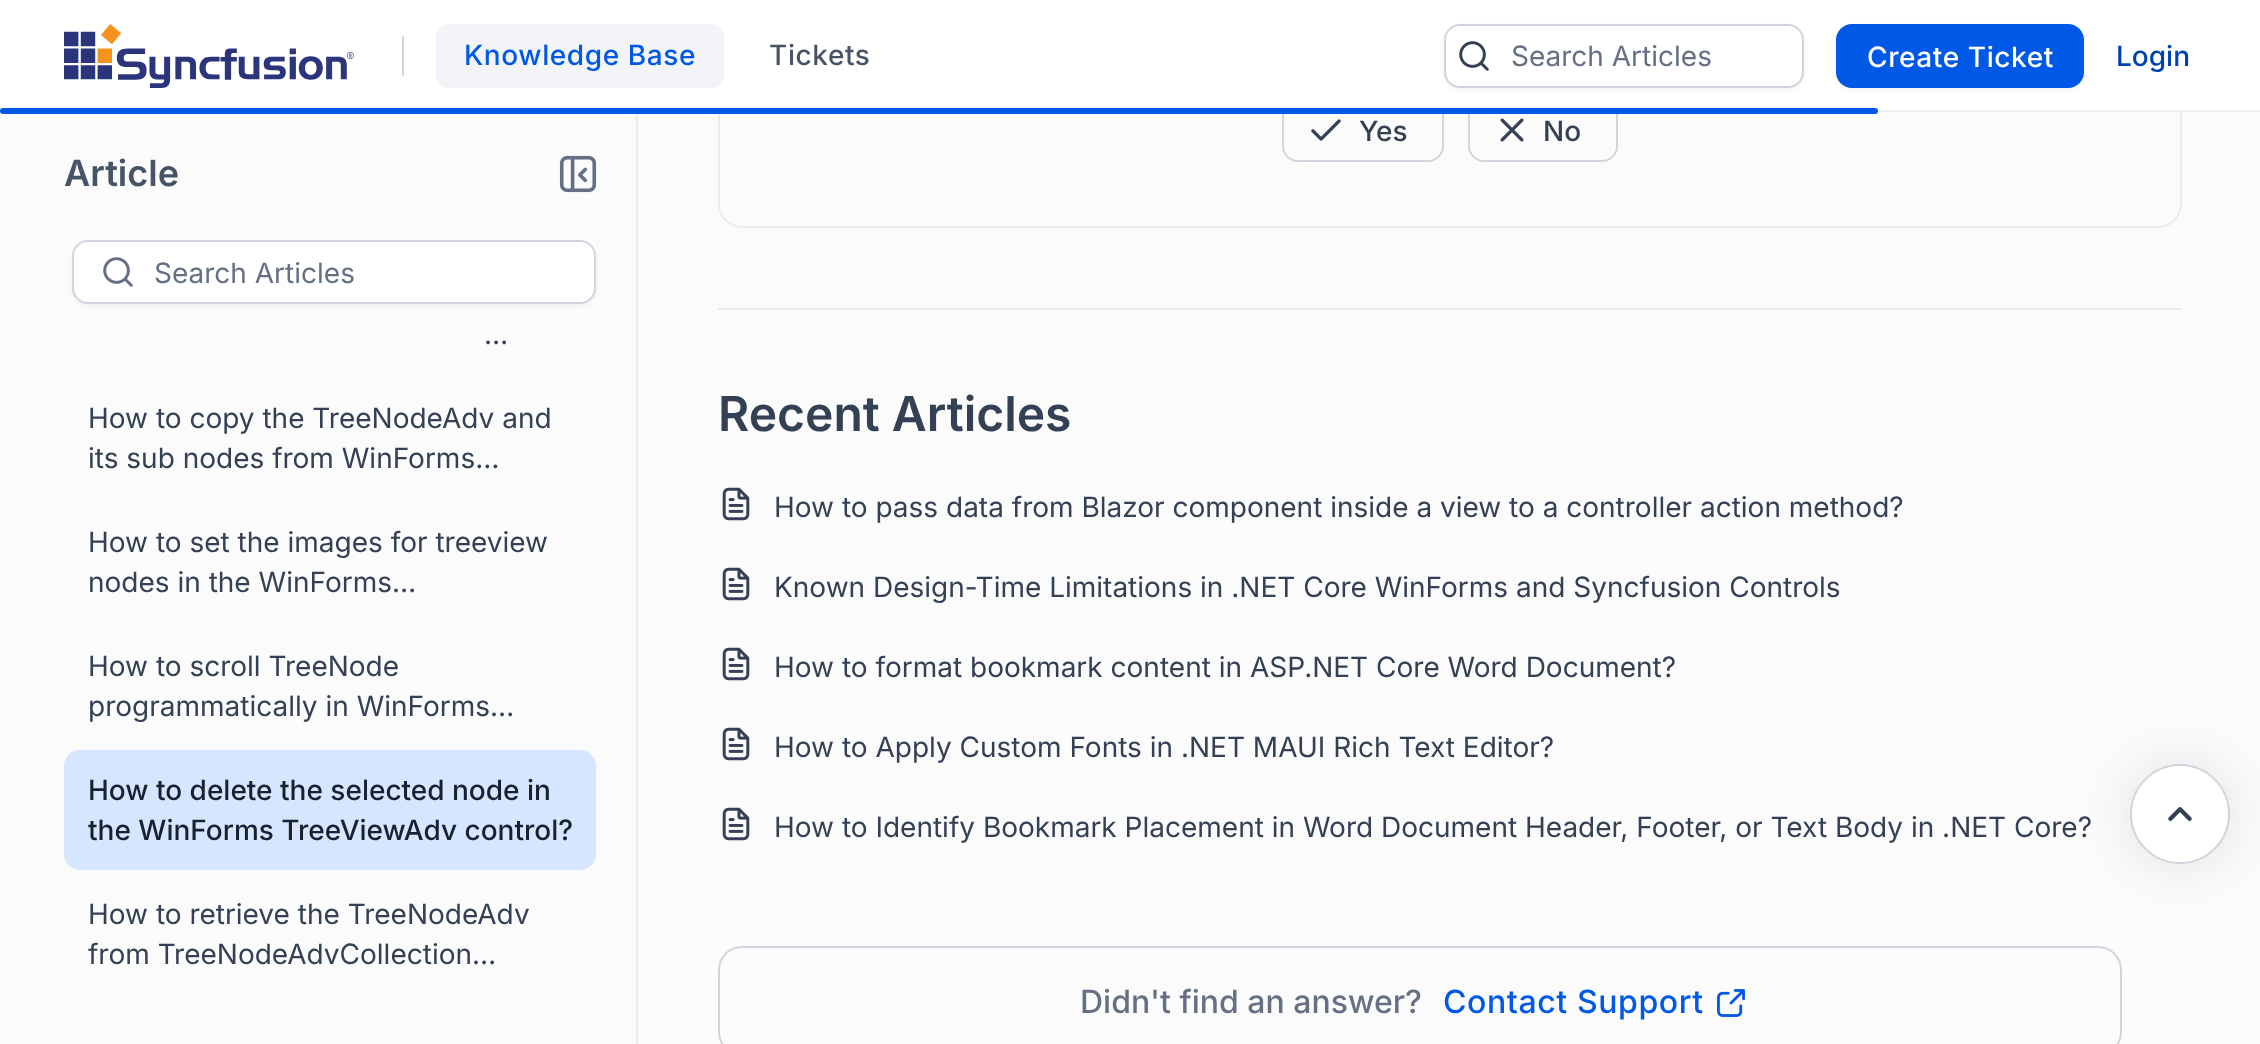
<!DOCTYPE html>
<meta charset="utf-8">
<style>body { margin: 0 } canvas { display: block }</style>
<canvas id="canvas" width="2260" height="1044"></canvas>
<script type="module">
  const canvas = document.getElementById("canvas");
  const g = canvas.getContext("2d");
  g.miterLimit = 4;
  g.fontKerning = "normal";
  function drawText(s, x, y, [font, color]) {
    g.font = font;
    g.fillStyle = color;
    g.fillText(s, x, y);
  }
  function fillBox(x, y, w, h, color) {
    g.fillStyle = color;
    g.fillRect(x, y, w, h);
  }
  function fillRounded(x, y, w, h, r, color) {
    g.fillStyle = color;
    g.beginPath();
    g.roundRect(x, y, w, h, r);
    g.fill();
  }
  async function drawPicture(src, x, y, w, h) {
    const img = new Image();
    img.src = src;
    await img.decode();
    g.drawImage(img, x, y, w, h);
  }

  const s1 = ["500 28px Inter", "#0058E6"];
  const s2 = ["500 28px Inter", "#475467"];
  const s3 = ["28px Inter", "#667085"];
  const s4 = ["500 28px Inter", "#FFFFFF"];
  const s5 = ["500 28px Inter", "#0042AD"];
  const s6 = ["600 36px Inter", "#475467"];
  const s7 = ["28px Inter", "#344054"];
  const s8 = ["500 28px Inter", "#18212F"];
  const s9 = ["500 28px Inter", "#344054"];
  const s10 = ["600 48px Inter", "#344054"];
  const s11 = ["500 32px Inter", "#667085"];
  const s12 = ["500 32px Inter", "#0058E6"];

  fillBox(0, 0, 2260, 1044, "#FBFBFC");
  g.beginPath();
  g.roundRect(719, -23, 1462, 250, 23);
  g.strokeStyle = "#EAECF0";
  g.lineWidth = 2;
  g.stroke();
  g.beginPath();
  g.roundRect(1283, 99, 160, 62, 15);
  g.strokeStyle = "#D0D5DD";
  g.stroke();
  g.beginPath();
  g.roundRect(1469, 99, 148, 62, 15);
  g.stroke();
  fillBox(0, 0, 2260, 110, "#FFFFFF");
  fillBox(0, 110, 2260, 2, "#EAECF0");
  await drawPicture("pic1.png", 64, 24, 290, 64);
  fillBox(402, 36, 2, 40, "#D0D5DD");
  fillRounded(436, 24, 288, 64, 12, "#F2F4F7");
  g.letterSpacing = "0.6px";
  drawText("Knowledge Base", 464, 65, s1);
  drawText("Tickets", 769, 65, s2);
  g.fillStyle = "rgba(16, 24, 40, 0.05)";
  g.filter = "blur(2px)";
  g.beginPath();
  g.roundRect(1444, 26, 360, 64, 16);
  g.fill();
  g.filter = "none";
  g.fillStyle = "#FFFFFF";
  g.beginPath();
  g.roundRect(1445, 25, 358, 62, 15);
  g.fill();
  g.stroke();
  await drawPicture("pic2.png", 1459, 41, 30, 30);
  g.letterSpacing = "0px";
  drawText("Search Articles", 1511, 66, s3);
  g.fillStyle = "rgba(16, 24, 40, 0.05)";
  g.filter = "blur(2px)";
  g.beginPath();
  g.roundRect(1836, 26, 248, 64, 16);
  g.fill();
  g.filter = "none";
  g.fillStyle = "#0058E6";
  g.beginPath();
  g.roundRect(1837, 25, 246, 62, 15);
  g.fill();
  g.strokeStyle = "#0058E6";
  g.stroke();
  g.letterSpacing = "0.6px";
  drawText("Create Ticket", 1867, 67, s4);
  g.letterSpacing = "0px";
  drawText("Login", 2116, 66, s5);
  fillRounded(0, 108, 1878, 6, 3, "#0058E6");
  drawText("Article", 64, 186, s6);
  await drawPicture("pic3.png", 559, 155, 38, 38);
  g.fillStyle = "rgba(16, 24, 40, 0.05)";
  g.filter = "blur(2px)";
  g.beginPath();
  g.roundRect(72, 242, 524, 64, 16);
  g.fill();
  g.filter = "none";
  g.fillStyle = "#FFFFFF";
  g.beginPath();
  g.roundRect(73, 241, 522, 62, 15);
  g.fill();
  g.strokeStyle = "#D0D5DD";
  g.stroke();
  await drawPicture("pic4.png", 103, 257, 30, 30);
  fillRounded(154, 242, 440, 60, 16, "#FFFFFF");
  drawText("Search Articles", 154, 283, s3);
  drawText("…", 484, 344, s7);
  drawText("How to copy the TreeNodeAdv and", 88, 428, s7);
  drawText("its sub nodes from WinForms…", 88, 468, s7);
  drawText("How to set the images for treeview", 88, 552, s7);
  drawText("nodes in the WinForms…", 88, 592, s7);
  drawText("How to scroll TreeNode", 88, 676, s7);
  drawText("programmatically in WinForms…", 88, 716, s7);
  fillRounded(64, 750, 532, 120, 16, "#D6E6FF");
  drawText("How to delete the selected node in", 88, 800, s8);
  drawText("the WinForms TreeViewAdv control?", 88, 840, s8);
  drawText("How to retrieve the TreeNodeAdv", 88, 924, s7);
  drawText("from TreeNodeAdvCollection…", 88, 964, s7);
  fillBox(636, 114, 2, 930, "#EAECF0");
  await drawPicture("pic5.png", 1311, 119, 30, 22);
  drawText("Yes", 1359, 141, s9);
  await drawPicture("pic6.png", 1500, 118, 24, 24);
  drawText("No", 1543, 141, s9);
  fillBox(718, 308, 1464, 2, "#EAECF0");
  drawText("Recent Articles", 718, 431, s10);
  await drawPicture("pic7.png", 722, 487, 28, 34);
  drawText("How to pass data from Blazor component inside a view to a controller action method?", 774, 517, s7);
  await drawPicture("pic7.png", 722, 567, 28, 34);
  drawText("Known Design-Time Limitations in .NET Core WinForms and Syncfusion Controls", 774, 597, s7);
  await drawPicture("pic7.png", 722, 647, 28, 34);
  drawText("How to format bookmark content in ASP.NET Core Word Document?", 774, 677, s7);
  await drawPicture("pic7.png", 722, 727, 28, 34);
  drawText("How to Apply Custom Fonts in .NET MAUI Rich Text Editor?", 774, 757, s7);
  await drawPicture("pic7.png", 722, 807, 28, 34);
  drawText("How to Identify Bookmark Placement in Word Document Header, Footer, or Text Body in .NET Core?", 774, 837, s7);
  g.beginPath();
  g.roundRect(719, 947, 1402, 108, 23);
  g.stroke();
  drawText("Didn't find an answer?", 1080, 1013, s11);
  g.letterSpacing = "0.6px";
  drawText("Contact Support", 1443, 1013, s12);
  await drawPicture("pic8.png", 1717, 989, 28, 28);
  g.fillStyle = "rgba(0, 0, 0, 0.1)";
  g.filter = "blur(25px)";
  g.beginPath();
  g.roundRect(2130, 764, 100, 100, 50);
  g.fill();
  g.filter = "none";
  g.fillStyle = "#FFFFFF";
  g.beginPath();
  g.arc(2180, 814, 49, 0, Math.PI * 2);
  g.fill();
  g.stroke();
  await drawPicture("pic9.png", 2168, 807, 24, 14);
</script>
